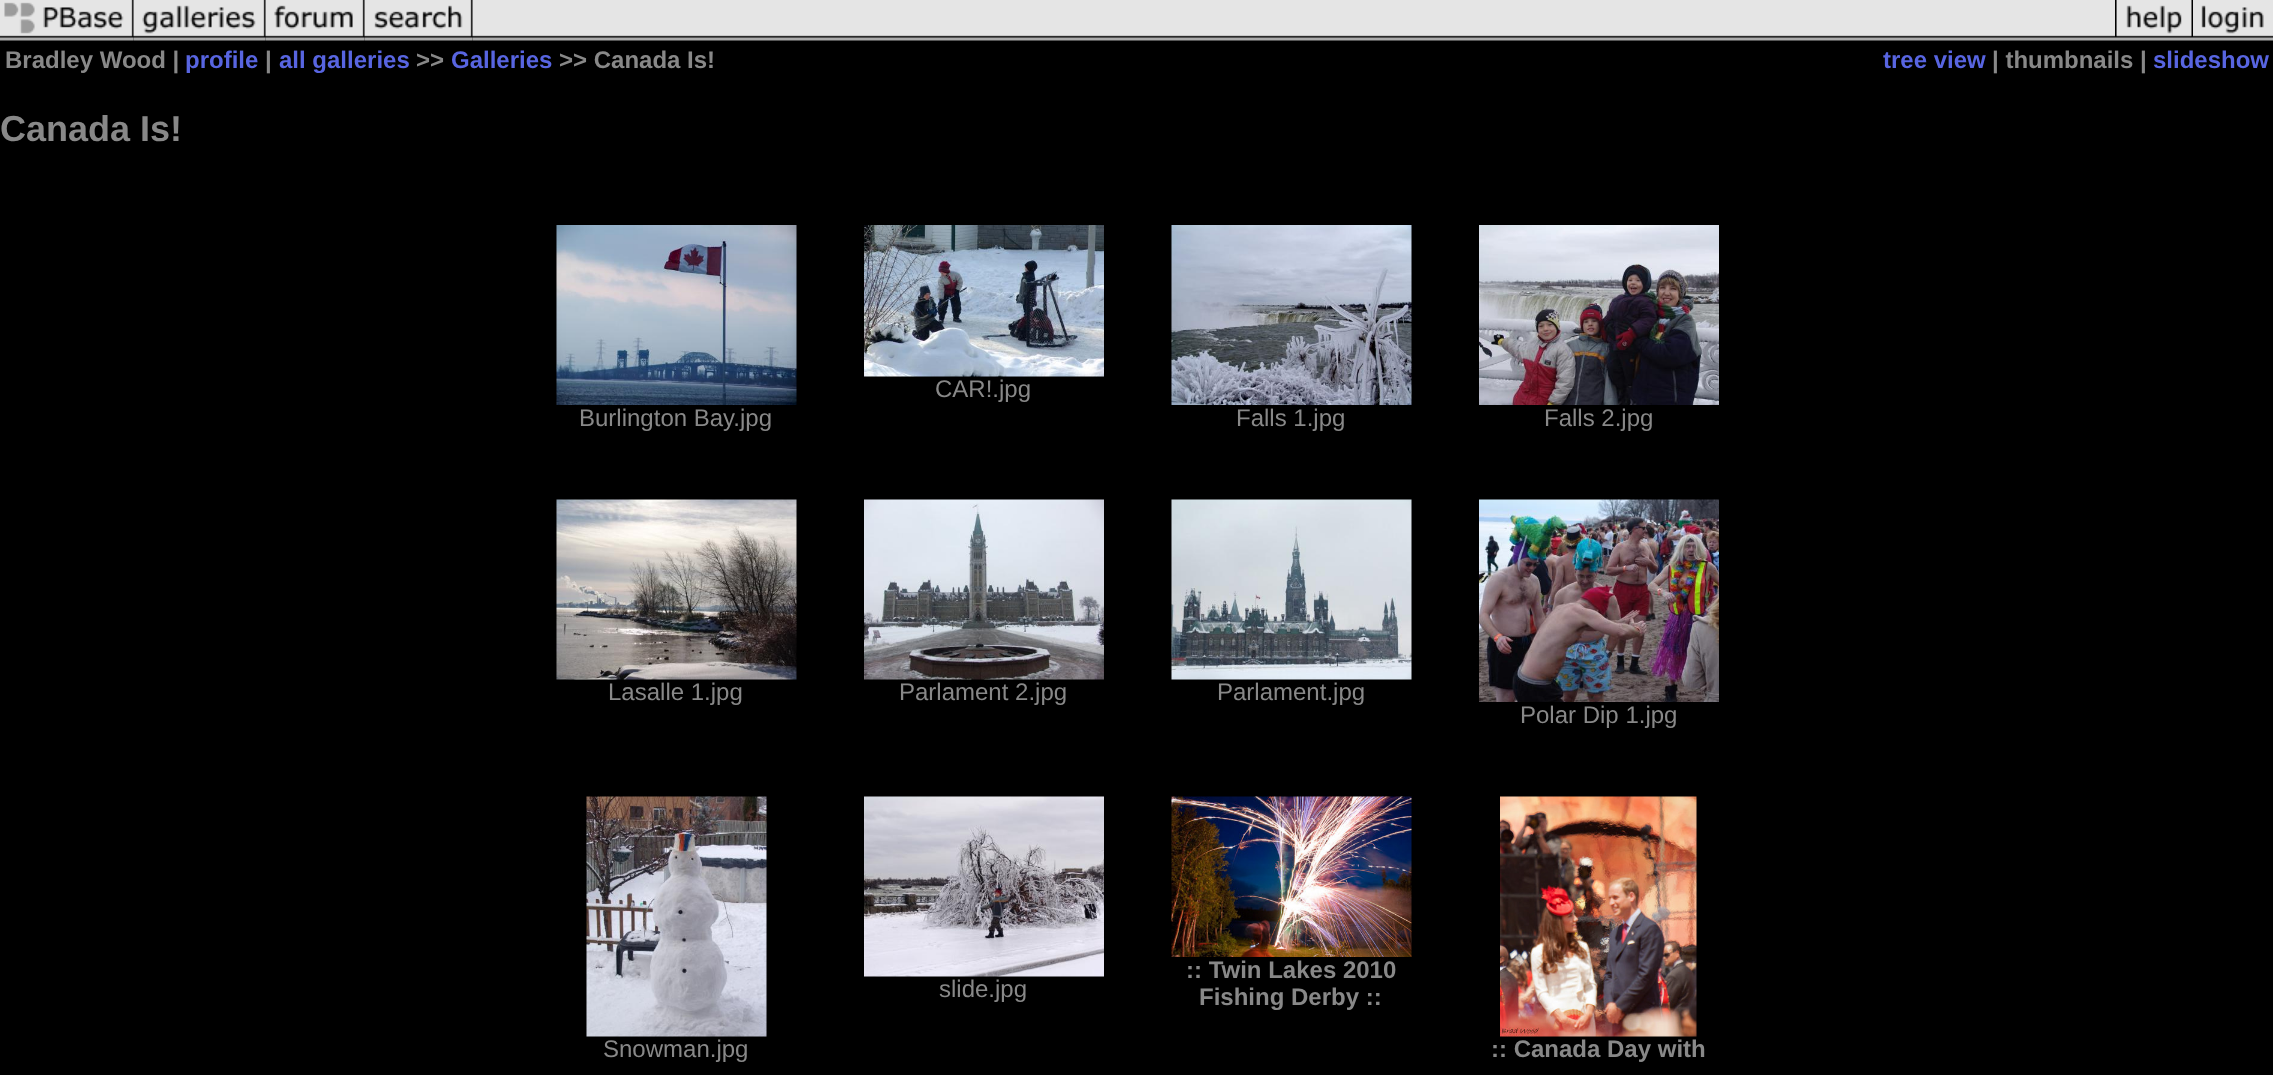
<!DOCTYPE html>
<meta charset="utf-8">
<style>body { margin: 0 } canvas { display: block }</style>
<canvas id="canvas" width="2273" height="1075"></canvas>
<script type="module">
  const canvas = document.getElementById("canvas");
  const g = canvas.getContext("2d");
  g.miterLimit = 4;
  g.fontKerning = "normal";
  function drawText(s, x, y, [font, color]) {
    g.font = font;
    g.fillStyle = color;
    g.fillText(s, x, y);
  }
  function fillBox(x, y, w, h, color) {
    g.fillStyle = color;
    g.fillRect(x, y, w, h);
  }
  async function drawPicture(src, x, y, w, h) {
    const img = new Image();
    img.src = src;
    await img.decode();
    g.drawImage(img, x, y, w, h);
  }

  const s1 = ["bold 24px Liberation Sans", "#888888"];
  const s2 = ["bold 24px Liberation Sans", "#5865E1"];
  const s3 = ["bold 36px Liberation Sans", "#888888"];
  const s4 = ["24px Liberation Sans", "#888888"];

  fillBox(0, 0, 2273, 1075, "#000000");
  await drawPicture("pic1.png", 0, 0, 134, 41);
  await drawPicture("pic2.png", 133, 0, 133, 41);
  await drawPicture("pic3.png", 265, 0, 100, 41);
  await drawPicture("pic4.png", 364, 0, 109, 41);
  await drawPicture("pic5.png", 472, 0, 1643, 41);
  await drawPicture("pic6.png", 2115, 0, 78, 41);
  await drawPicture("pic7.png", 2193, 0, 80, 41);
  drawText("Bradley Wood |", 5, 68, s1);
  drawText("profile", 185, 68, s2);
  drawText("|", 265, 68, s1);
  drawText("all galleries", 279, 68, s2);
  drawText(">>", 416, 68, s1);
  drawText("Galleries", 451, 68, s2);
  drawText(">> Canada Is!", 559, 68, s1);
  drawText("tree view", 1883, 68, s2);
  drawText("| thumbnails |", 1992, 68, s1);
  drawText("slideshow", 2153, 68, s2);
  drawText("Canada Is!", 0, 141, s3);
  await drawPicture("pic8.png", 864, 225, 240, 152);
  drawText("CAR!.jpg", 935, 397, s4);
  await drawPicture("pic9.png", 556, 225, 241, 180);
  drawText("Burlington Bay.jpg", 579, 426, s4);
  await drawPicture("pic10.png", 1171, 225, 241, 180);
  drawText("Falls 1.jpg", 1236, 426, s4);
  await drawPicture("pic11.png", 1479, 225, 240, 180);
  drawText("Falls 2.jpg", 1544, 426, s4);
  await drawPicture("pic12.png", 556, 499, 241, 181);
  drawText("Lasalle 1.jpg", 608, 700, s4);
  await drawPicture("pic13.png", 864, 499, 240, 181);
  drawText("Parlament 2.jpg", 899, 700, s4);
  await drawPicture("pic14.png", 1171, 499, 241, 181);
  drawText("Parlament.jpg", 1217, 700, s4);
  await drawPicture("pic15.png", 1479, 499, 240, 203);
  drawText("Polar Dip 1.jpg", 1520, 723, s4);
  await drawPicture("pic16.png", 864, 796, 240, 181);
  drawText("slide.jpg", 939, 997, s4);
  await drawPicture("pic17.png", 1171, 796, 241, 161);
  drawText(":: Twin Lakes 2010", 1186, 978, s1);
  drawText("Fishing Derby ::", 1199, 1005, s1);
  await drawPicture("pic18.png", 586, 796, 181, 241);
  drawText("Snowman.jpg", 603, 1057, s4);
  await drawPicture("pic19.png", 1500, 796, 197, 241);
  drawText(":: Canada Day with", 1491, 1057, s1);
</script>
